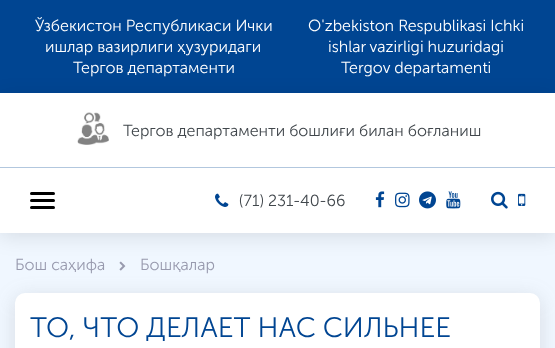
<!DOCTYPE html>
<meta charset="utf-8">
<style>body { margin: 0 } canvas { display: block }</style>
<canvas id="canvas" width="555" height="348"></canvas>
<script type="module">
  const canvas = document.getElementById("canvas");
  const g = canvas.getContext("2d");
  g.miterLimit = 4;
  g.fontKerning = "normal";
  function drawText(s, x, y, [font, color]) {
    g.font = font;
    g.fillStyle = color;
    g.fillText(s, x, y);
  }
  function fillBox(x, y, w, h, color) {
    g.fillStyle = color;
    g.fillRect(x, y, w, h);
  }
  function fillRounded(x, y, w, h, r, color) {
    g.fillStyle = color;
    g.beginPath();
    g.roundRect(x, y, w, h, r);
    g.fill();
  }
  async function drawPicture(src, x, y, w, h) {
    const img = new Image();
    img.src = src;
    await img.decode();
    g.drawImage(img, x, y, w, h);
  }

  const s1 = ["300 16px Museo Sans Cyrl", "#FFFFFF"];
  const s2 = ["300 16px Museo Sans Cyrl", "#41474C"];
  const s3 = ["300 16px Museo Sans Cyrl", "#989AAE"];
  const s4 = ["300 28px Museo Sans Cyrl", "#004592"];

  fillBox(0, 0, 555, 348, "#F0F7FF");
  fillBox(0, 0, 555, 93, "#004592");
  drawText("Ўзбекистон Республикаси Ички", 35, 31, s1);
  drawText("ишлар вазирлиги ҳузуридаги", 45, 52, s1);
  g.fillStyle = "rgba(0, 0, 0, 0.1)";
  g.filter = "blur(10px)";
  g.beginPath();
  g.rect(0, 97, 555, 140);
  g.fill();
  g.filter = "none";
  drawText("Тергов департаменти", 73, 73, s1);
  drawText("O'zbekiston Respublikasi Ichki", 308, 31, s1);
  drawText("ishlar vazirligi huzuridagi", 328, 52, s1);
  drawText("Tergov departamenti", 341, 73, s1);
  fillBox(0, 93, 555, 140, "#FFFFFF");
  fillRounded(30, 192, 25, 3, 1.5, "#000000");
  fillRounded(30, 199, 25, 3, 1.5, "#000000");
  fillRounded(30, 206, 25, 3, 1.5, "#000000");
  fillBox(0, 167, 555, 1, "#B2C7DE");
  await drawPicture("pic1.png", 77, 112, 32, 33);
  drawText("Тергов департaменти бошлиғи билан боғланиш", 123, 136, s2);
  await drawPicture("pic2.png", 215, 193, 14, 14);
  drawText("(71) 231-40-66", 239, 206, s2);
  await drawPicture("pic3.png", 375, 191, 10, 17);
  await drawPicture("pic4.png", 395, 192, 15, 16);
  await drawPicture("pic5.png", 419, 191, 17, 18);
  await drawPicture("pic6.png", 446, 191, 15, 18);
  await drawPicture("pic7.png", 491, 191, 17, 18);
  await drawPicture("pic8.png", 518, 193, 8, 13);
  drawText("Бош саҳифа", 15, 270, s3);
  g.fillStyle = "rgba(110, 110, 110, 0.2)";
  g.filter = "blur(10px)";
  g.beginPath();
  g.roundRect(15, 297, 525, 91, 10);
  g.fill();
  g.filter = "none";
  await drawPicture("pic9.png", 119, 261, 7, 10);
  drawText("Бошқалар", 140, 270, s3);
  fillRounded(15, 293, 525, 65, 10, "#FFFFFF");
  drawText("ТО, ЧТО ДЕЛАЕТ НАС СИЛЬНЕЕ", 30, 337, s4);
</script>
